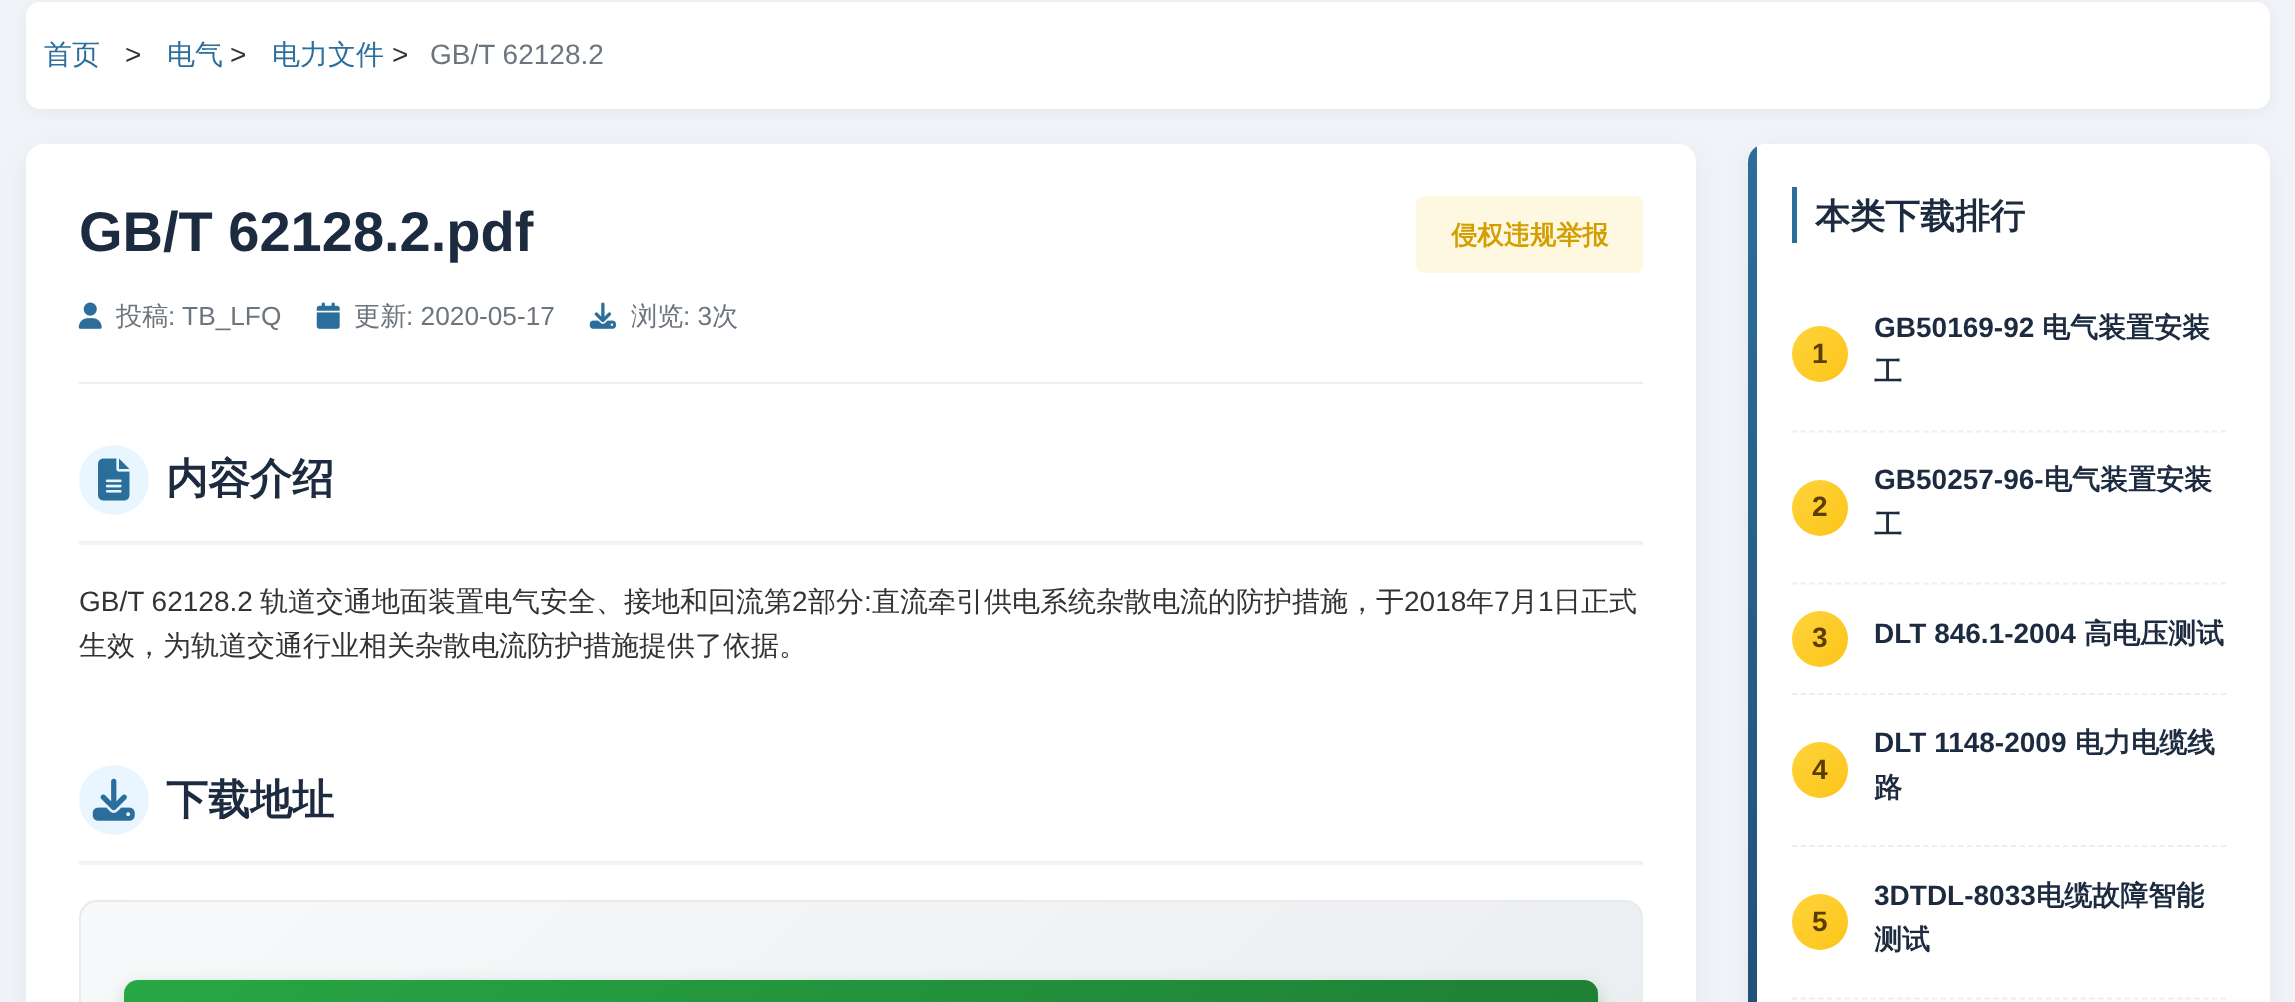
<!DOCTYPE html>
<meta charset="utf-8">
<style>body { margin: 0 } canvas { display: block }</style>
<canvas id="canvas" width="2295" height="1002"></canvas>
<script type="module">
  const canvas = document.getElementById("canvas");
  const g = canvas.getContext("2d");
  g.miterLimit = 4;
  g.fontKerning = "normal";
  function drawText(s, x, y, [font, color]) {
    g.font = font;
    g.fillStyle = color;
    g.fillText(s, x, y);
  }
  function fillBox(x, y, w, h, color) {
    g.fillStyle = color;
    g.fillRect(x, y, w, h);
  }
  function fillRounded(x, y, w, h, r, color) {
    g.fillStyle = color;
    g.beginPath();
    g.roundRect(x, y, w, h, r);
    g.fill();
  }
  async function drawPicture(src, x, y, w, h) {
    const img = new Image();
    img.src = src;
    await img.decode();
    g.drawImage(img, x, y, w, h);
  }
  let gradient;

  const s1 = ["500 28px WenQuanYi Zen Hei", "#2C6E9B"];
  const s2 = ["28px Liberation Sans", "#333333"];
  const s3 = ["28px Liberation Sans", "#6C757D"];
  const s4 = ["bold 56px Liberation Sans", "#1C2B3F"];
  const s5 = ["500 26.25px WenQuanYi Zen Hei", "#6C757D"];
  const s6 = ["26.25px Liberation Sans", "#6C757D"];
  const s7 = ["bold 26.25px WenQuanYi Zen Hei", "#D39E00"];
  const s8 = ["bold 42px WenQuanYi Zen Hei", "#1C2B3F"];
  const s9 = ["500 28px WenQuanYi Zen Hei", "#333333"];
  const s10 = ["bold 35px WenQuanYi Zen Hei", "#1C2B3F"];
  const s11 = ["bold 28px Liberation Sans", "#5C3D00"];
  const s12 = ["bold 28px Liberation Sans", "#1C2B3F"];
  const s13 = ["bold 28px WenQuanYi Zen Hei", "#1C2B3F"];

  fillBox(0, 0, 2295, 1002, "#F0F4F8");
  g.fillStyle = "rgba(0, 0, 0, 0.05)";
  g.filter = "blur(7px)";
  g.beginPath();
  g.roundRect(26, 5, 2244, 107, 14);
  g.fill();
  g.filter = "none";
  fillRounded(26, 2, 2244, 107, 14, "#FFFFFF");
  drawText("首页", 44, 64, s1);
  drawText(">", 125, 64, s2);
  drawText("电气", 167, 64, s1);
  drawText(">", 230, 64, s2);
  drawText("电力文件", 272, 64, s1);
  drawText(">", 392, 64, s2);
  drawText("GB/T 62128.2", 430, 64, s3);
  g.fillStyle = "rgba(0, 0, 0, 0.05)";
  g.filter = "blur(13px)";
  g.beginPath();
  g.roundRect(26, 152, 1670, 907, 18);
  g.fill();
  g.filter = "none";
  fillRounded(26, 144, 1670, 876, 18, "#FFFFFF");
  fillBox(79, 382, 1564, 2, "#EEEEEE");
  drawText("GB/T 62128.2.pdf", 79, 251, s4);
  await drawPicture("pic1.png", 78, 302, 24, 27);
  drawText("投稿", 116, 325, s5);
  drawText(": TB_LFQ", 168, 325, s6);
  await drawPicture("pic2.png", 316, 302, 24, 27);
  drawText("更新", 354, 325, s5);
  drawText(": 2020-05-17", 406, 325, s6);
  await drawPicture("pic3.png", 589, 302, 27, 27);
  drawText("浏览", 631, 325, s5);
  drawText(": 3", 683, 325, s6);
  drawText("次", 712, 325, s5);
  fillRounded(1416, 196, 227, 77, 7, "#FFF8E1");
  drawText("侵权违规举报", 1451, 244, s7);
  fillBox(79, 541, 1564, 4, "#F0F4F8");
  g.fillStyle = "#E9F5FF";
  g.beginPath();
  g.arc(114, 480, 35, 0, Math.PI * 2);
  g.fill();
  await drawPicture("pic4.png", 98, 458, 32, 43);
  drawText("内容介绍", 166, 493, s8);
  drawText("GB/T 62128.2", 79, 611, s2);
  drawText("轨道交通地面装置电气安全、接地和回流第", 260, 611, s9);
  drawText("2", 792, 611, s2);
  drawText("部分", 808, 611, s9);
  drawText(":", 864, 611, s2);
  drawText("直流牵引供电系统杂散电流的防护措施，于", 872, 611, s9);
  drawText("2018", 1404, 611, s2);
  drawText("年", 1466, 611, s9);
  drawText("7", 1494, 611, s2);
  drawText("月", 1510, 611, s9);
  drawText("1", 1538, 611, s2);
  drawText("日正式", 1553, 611, s9);
  drawText("生效，为轨道交通行业相关杂散电流防护措施提供了依据。", 79, 655, s9);
  fillBox(79, 861, 1564, 4, "#F0F4F8");
  g.fillStyle = "#E9F5FF";
  g.beginPath();
  g.arc(114, 800, 35, 0, Math.PI * 2);
  g.fill();
  await drawPicture("pic5.png", 92, 778, 43, 43);
  drawText("下载地址", 166, 814, s8);
  g.save();
  g.beginPath();
  g.roundRect(79, 900, 1564, 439, 18);
  g.clip();
  gradient = g.createLinearGradient(362, 620, 1360, 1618);
  gradient.addColorStop(0, "#F8F9FA");
  gradient.addColorStop(1, "#E9ECEF");
  g.fillStyle = gradient;
  g.fillRect(81, 901, 1561, 101);
  g.restore();
  g.beginPath();
  g.roundRect(80, 901, 1562, 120, 17);
  g.strokeStyle = "#EAEAEA";
  g.lineWidth = 2;
  g.stroke();
  g.fillStyle = "rgba(40, 167, 69, 0.3)";
  g.filter = "blur(9px)";
  g.beginPath();
  g.roundRect(124, 987, 1474, 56, 14);
  g.fill();
  g.filter = "none";
  gradient = g.createLinearGradient(467, 637, 1255, 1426);
  gradient.addColorStop(0, "#28A745");
  gradient.addColorStop(1, "#1E7E34");
  g.fillStyle = gradient;
  g.beginPath();
  g.roundRect(124, 980, 1474, 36, 14);
  g.fill();
  g.fillStyle = "rgba(0, 0, 0, 0.05)";
  g.filter = "blur(13px)";
  g.beginPath();
  g.roundRect(1748, 152, 522, 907, 18);
  g.fill();
  g.filter = "none";
  fillRounded(1748, 144, 522, 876, 18, "#FFFFFF");
  g.save();
  g.beginPath();
  g.roundRect(1748, 144, 522, 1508, 18);
  g.clip();
  gradient = g.createLinearGradient(1753, 144, 1753, 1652);
  gradient.addColorStop(0, "#2C6E9B");
  gradient.addColorStop(1, "#1A3A5F");
  g.fillStyle = gradient;
  g.fillRect(1748, 146, 9, 856);
  g.restore();
  fillBox(1792, 187, 5, 56, "#2C6E9B");
  drawText("本类下载排行", 1815, 228, s10);
  g.beginPath();
  g.moveTo(1792, 431.5);
  g.lineTo(2226, 431.5);
  g.strokeStyle = "#EEEEEE";
  g.lineWidth = 1.8;
  g.setLineDash([5.25, 3.5]);
  g.stroke();
  gradient = g.createLinearGradient(1792, 326, 1848, 382);
  gradient.addColorStop(0, "#FFD43B");
  gradient.addColorStop(1, "#FCC419");
  g.fillStyle = gradient;
  g.beginPath();
  g.arc(1820, 354, 28, 0, Math.PI * 2);
  g.fill();
  drawText("1", 1812, 363, s11);
  drawText("GB50169-92", 1874, 337, s12);
  drawText("电气装置安装", 2042, 337, s13);
  drawText("工", 1874, 381, s13);
  g.beginPath();
  g.moveTo(1792, 583.5);
  g.lineTo(2226, 583.5);
  g.stroke();
  gradient = g.createLinearGradient(1792, 480, 1848, 536);
  gradient.addColorStop(0, "#FFD43B");
  gradient.addColorStop(1, "#FCC419");
  g.fillStyle = gradient;
  g.beginPath();
  g.arc(1820, 508, 28, 0, Math.PI * 2);
  g.fill();
  drawText("2", 1812, 516, s11);
  drawText("GB50257-96-", 1874, 489, s12);
  drawText("电气装置安装", 2044, 489, s13);
  drawText("工", 1874, 534, s13);
  g.beginPath();
  g.moveTo(1792, 694);
  g.lineTo(2226, 694);
  g.stroke();
  gradient = g.createLinearGradient(1792, 611, 1848, 667);
  gradient.addColorStop(0, "#FFD43B");
  gradient.addColorStop(1, "#FCC419");
  g.fillStyle = gradient;
  g.beginPath();
  g.arc(1820, 639, 28, 0, Math.PI * 2);
  g.fill();
  drawText("3", 1812, 647, s11);
  drawText("DLT 846.1-2004", 1874, 643, s12);
  drawText("高电压测试", 2084, 643, s13);
  g.beginPath();
  g.moveTo(1792, 846);
  g.lineTo(2226, 846);
  g.stroke();
  gradient = g.createLinearGradient(1792, 742, 1848, 798);
  gradient.addColorStop(0, "#FFD43B");
  gradient.addColorStop(1, "#FCC419");
  g.fillStyle = gradient;
  g.beginPath();
  g.arc(1820, 770, 28, 0, Math.PI * 2);
  g.fill();
  drawText("4", 1812, 779, s11);
  drawText("DLT 1148-2009", 1874, 752, s12);
  drawText("电力电缆线", 2075, 752, s13);
  drawText("路", 1874, 797, s13);
  g.beginPath();
  g.moveTo(1792, 998.5);
  g.lineTo(2226, 998.5);
  g.stroke();
  gradient = g.createLinearGradient(1792, 894, 1848, 950);
  gradient.addColorStop(0, "#FFD43B");
  gradient.addColorStop(1, "#FCC419");
  g.fillStyle = gradient;
  g.beginPath();
  g.arc(1820, 922, 28, 0, Math.PI * 2);
  g.fill();
  drawText("5", 1812, 931, s11);
  drawText("3DTDL-8033", 1874, 905, s12);
  drawText("电缆故障智能", 2036, 905, s13);
  drawText("测试", 1874, 949, s13);
</script>
